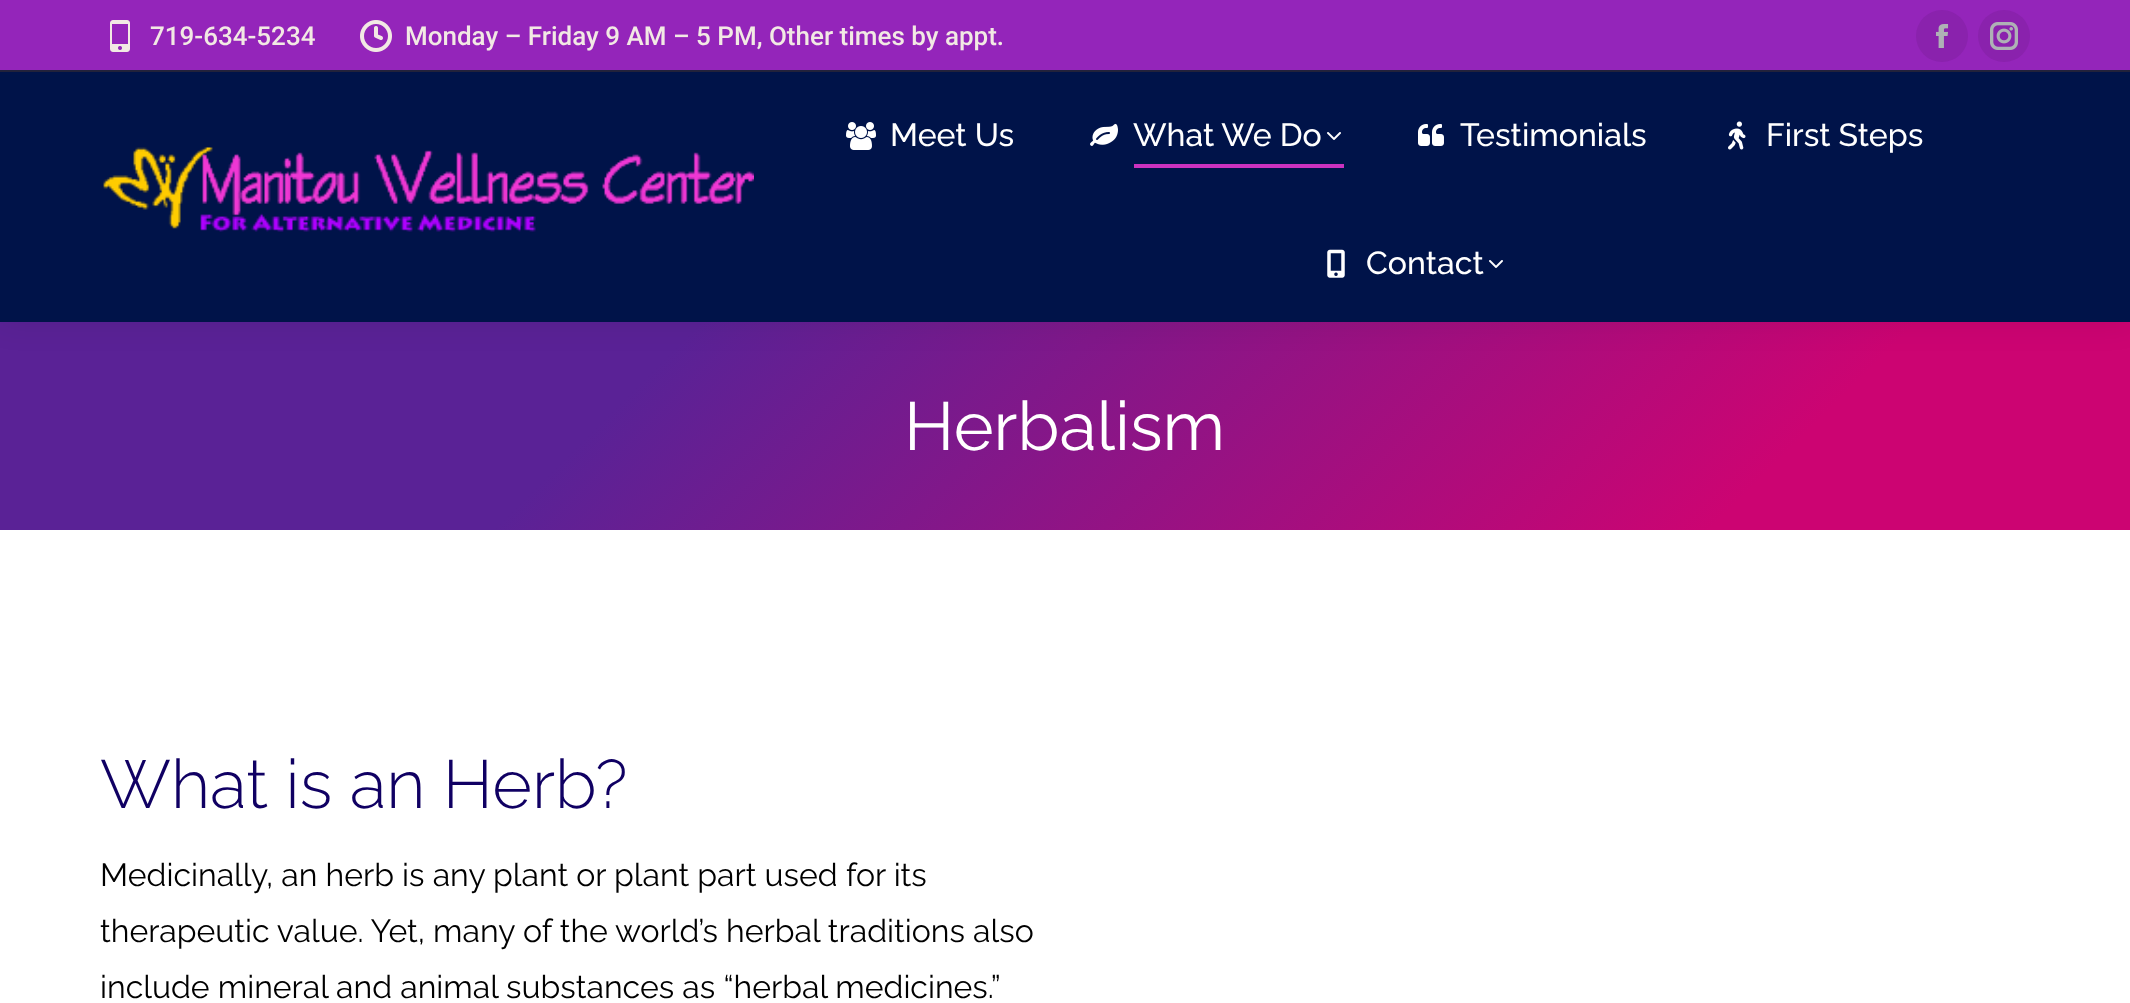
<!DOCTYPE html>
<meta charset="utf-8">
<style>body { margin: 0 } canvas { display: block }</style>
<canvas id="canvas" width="2130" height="1003"></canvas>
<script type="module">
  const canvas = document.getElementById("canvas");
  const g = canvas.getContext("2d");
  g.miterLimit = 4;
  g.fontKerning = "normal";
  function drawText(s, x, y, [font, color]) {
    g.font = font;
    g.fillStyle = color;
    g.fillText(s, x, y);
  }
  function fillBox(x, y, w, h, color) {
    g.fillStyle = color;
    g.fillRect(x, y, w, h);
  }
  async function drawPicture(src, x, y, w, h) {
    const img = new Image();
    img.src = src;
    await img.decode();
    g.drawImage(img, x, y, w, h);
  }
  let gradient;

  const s1 = ["500 26px Roboto", "#F2E9E4"];
  const s2 = ["500 32px Raleway", "#FFFFFF"];
  const s3 = ["68px Raleway", "#FFFFFF"];
  const s4 = ["300 68px Raleway", "#100063"];
  const s5 = ["32px Raleway", "#000000"];

  fillBox(0, 0, 2130, 1003, "#FFFFFF");
  gradient = g.createLinearGradient(480, -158, 1650, 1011);
  gradient.addColorStop(0.3, "#5A2296");
  gradient.addColorStop(0.82, "#CC0472");
  g.fillStyle = gradient;
  g.fillRect(0, 322, 2130, 208);
  g.fillStyle = "rgba(0, 0, 0, 0.07)";
  g.filter = "blur(15px)";
  g.beginPath();
  g.rect(-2, -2, 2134, 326);
  g.fill();
  g.filter = "none";
  fillBox(0, 72, 2130, 250, "#001349");
  fillBox(0, 0, 2130, 70, "#9425BA");
  await drawPicture("pic1.png", 110, 20, 20, 32);
  drawText("719-634-5234", 150, 45, s1);
  await drawPicture("pic2.png", 360, 20, 32, 32);
  drawText("Monday – Friday 9 AM – 5 PM, Other times by appt.", 405, 45, s1);
  g.fillStyle = "#8A22AD";
  g.beginPath();
  g.arc(1942, 36, 26, 0, Math.PI * 2);
  g.fill();
  await drawPicture("pic3.png", 1935, 24, 14, 24);
  g.beginPath();
  g.arc(2004, 36, 26, 0, Math.PI * 2);
  g.fill();
  await drawPicture("pic4.png", 1990, 22, 28, 28);
  fillBox(0, 70, 2130, 2, "#22223B");
  await drawPicture("pic5.png", 103, 147, 651, 85);
  await drawPicture("pic6.png", 846, 122, 30, 28);
  drawText("Meet Us", 890, 146, s2);
  await drawPicture("pic7.png", 1090, 123, 28, 23);
  drawText("What We Do", 1133, 146, s2);
  await drawPicture("pic8.png", 1327, 132, 14, 8);
  fillBox(1134, 164, 210, 4, "#CB32BF");
  await drawPicture("pic9.png", 1418, 124, 26, 22);
  drawText("Testimonials", 1460, 146, s2);
  await drawPicture("pic10.png", 1728, 121, 18, 29);
  drawText("First Steps", 1766, 146, s2);
  await drawPicture("pic11.png", 1327, 249, 18, 29);
  drawText("Contact", 1366, 274, s2);
  await drawPicture("pic8.png", 1489, 260, 14, 8);
  drawText("Herbalism", 904, 450, s3);
  drawText("What is an Herb?", 100, 808, s4);
  drawText("Medicinally, an herb is any plant or plant part used for its", 100, 886, s5);
  drawText("therapeutic value. Yet, many of the world’s herbal traditions also", 100, 942, s5);
  drawText("include mineral and animal substances as “herbal medicines.”", 100, 998, s5);
</script>
